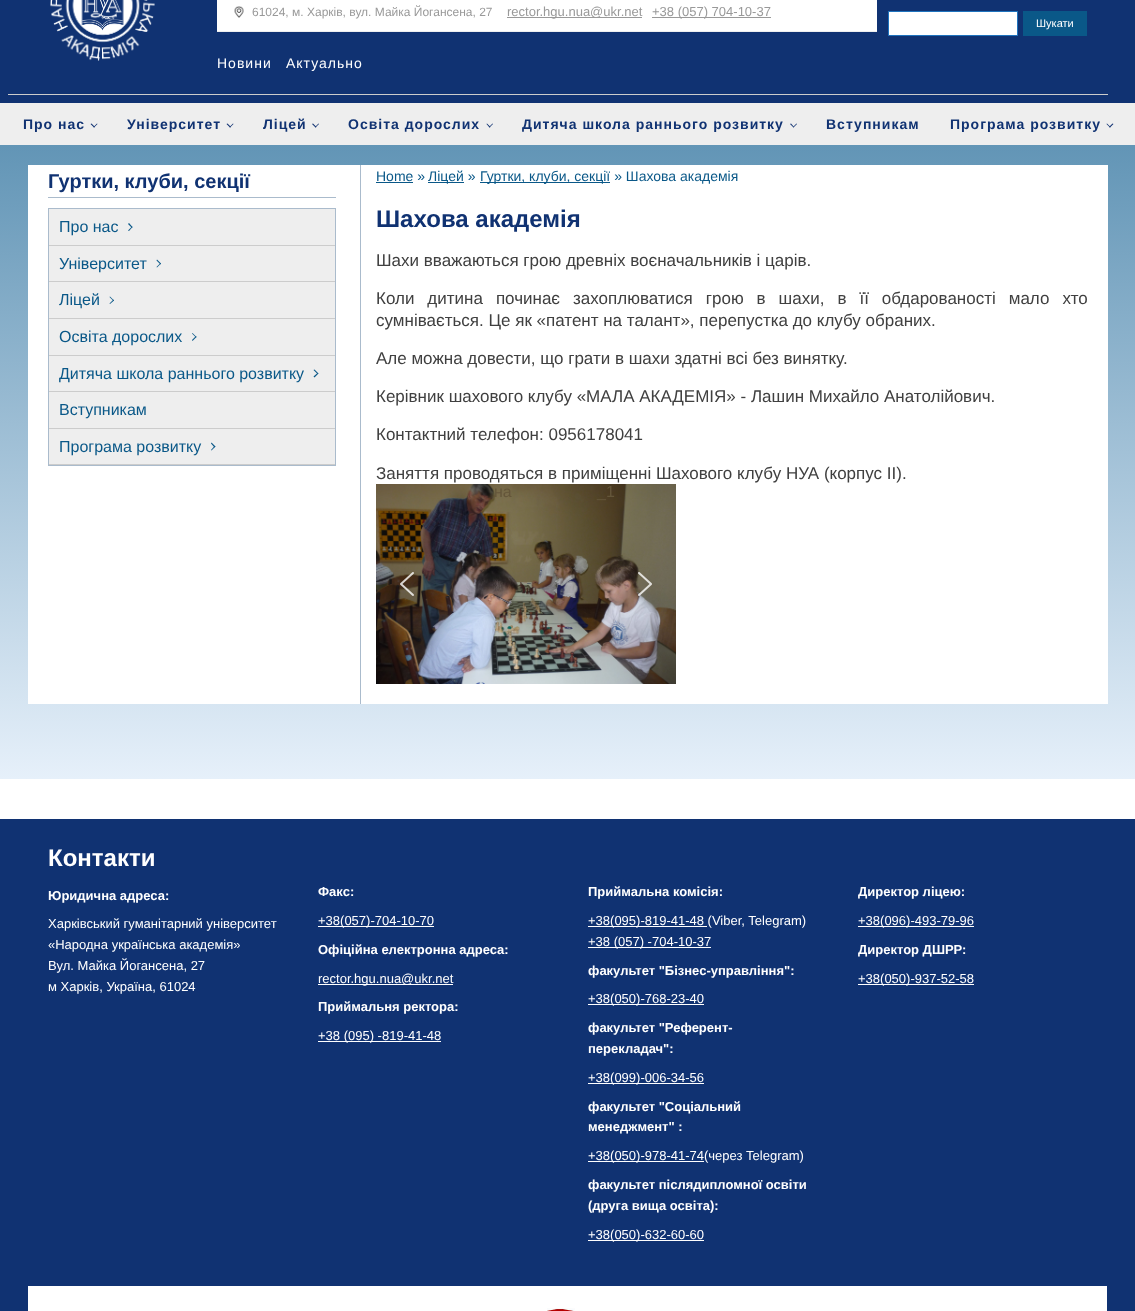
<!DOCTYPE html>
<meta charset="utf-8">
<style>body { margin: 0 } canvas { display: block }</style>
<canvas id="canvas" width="1135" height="1311"></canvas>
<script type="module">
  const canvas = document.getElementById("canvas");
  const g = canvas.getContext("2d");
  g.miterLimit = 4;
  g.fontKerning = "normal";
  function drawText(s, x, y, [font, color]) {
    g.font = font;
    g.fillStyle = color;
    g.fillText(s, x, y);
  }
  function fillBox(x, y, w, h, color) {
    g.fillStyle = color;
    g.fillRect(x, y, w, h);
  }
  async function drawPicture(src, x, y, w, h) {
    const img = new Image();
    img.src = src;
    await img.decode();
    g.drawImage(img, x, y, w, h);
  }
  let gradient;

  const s1 = ["12px Liberation Sans", "#999999"];
  const s2 = ["13px Liberation Sans", "#999999"];
  const s3 = ["14px Liberation Sans", "#FFFFFF"];
  const s4 = ["11px Liberation Sans", "#FFFFFF"];
  const s5 = ["bold 14px Liberation Sans", "#103272"];
  const s6 = ["bold 20px Liberation Sans", "#103272"];
  const s7 = ["16px Liberation Sans", "#0A5888"];
  const s8 = ["14px Liberation Sans", "#0A5888"];
  const s9 = ["bold 24px Liberation Sans", "#103272"];
  const s10 = ["17px Liberation Sans", "#404040"];
  const s11 = ["16px Liberation Sans", "#64563A"];
  const s12 = ["bold 24px Liberation Sans", "#FFFFFF"];
  const s13 = ["bold 13px Liberation Sans", "#FFFFFF"];
  const s14 = ["13px Liberation Sans", "#FFFFFF"];

  fillBox(0, 0, 1135, 1311, "#FFFFFF");
  fillBox(0, 0, 1135, 103, "#103272");
  fillBox(8, 94, 1100, 1, "#CCCCCC");
  await drawPicture("pic1.png", 50, 0, 105, 61);
  fillBox(217, 0, 660, 31, "#FFFFFF");
  fillBox(217, 31, 660, 1, "#EEEEEE");
  await drawPicture("pic2.png", 234, 6, 10, 12);
  drawText("61024, м. Харків, вул. Майка Йогансена, 27", 252, 16, s1);
  fillBox(507, 17, 135, 1, "#999999");
  drawText("rector.hgu.nua@ukr.net", 507, 16, s2);
  fillBox(652, 17, 119, 1, "#999999");
  drawText("+38 (057) 704-10-37", 652, 16, s2);
  g.letterSpacing = "1px";
  drawText("Новини", 217, 68, s3);
  drawText("Актуально", 286, 68, s3);
  g.beginPath();
  g.rect(888.5, 11.5, 129, 24);
  g.fill();
  g.strokeStyle = "#1E73BE";
  g.stroke();
  fillBox(1023, 11, 64, 25, "#0A5888");
  g.letterSpacing = "0px";
  drawText("Шукати", 1036, 27, s4);
  fillBox(0, 103, 1135, 42, "#EEEEEE");
  g.letterSpacing = "1px";
  drawText("Про нас", 23, 129, s5);
  g.beginPath();
  g.moveTo(97.5, 124);
  g.lineTo(94, 127.5);
  g.lineTo(93.5, 127);
  g.lineTo(97, 123.5);
  g.closePath();
  g.fill();
  g.beginPath();
  g.moveTo(95, 127);
  g.lineTo(94, 127.5);
  g.lineTo(90.5, 124);
  g.lineTo(91.5, 123.5);
  g.closePath();
  g.fill();
  drawText("Університет", 127, 129, s5);
  g.beginPath();
  g.moveTo(233.5, 124);
  g.lineTo(230, 127.5);
  g.lineTo(229.5, 127);
  g.lineTo(233, 123.5);
  g.closePath();
  g.fill();
  g.beginPath();
  g.moveTo(231, 127);
  g.lineTo(230, 127.5);
  g.lineTo(226.5, 124);
  g.lineTo(227.5, 123.5);
  g.closePath();
  g.fill();
  drawText("Ліцей", 263, 129, s5);
  g.beginPath();
  g.moveTo(319, 124);
  g.lineTo(315.5, 127.5);
  g.lineTo(315, 127);
  g.lineTo(318.5, 123.5);
  g.closePath();
  g.fill();
  g.beginPath();
  g.moveTo(316.5, 127);
  g.lineTo(315.5, 127.5);
  g.lineTo(312, 124);
  g.lineTo(313, 123.5);
  g.closePath();
  g.fill();
  drawText("Освіта дорослих", 348, 129, s5);
  g.beginPath();
  g.moveTo(493, 124);
  g.lineTo(489.5, 127.5);
  g.lineTo(489, 127);
  g.lineTo(492.5, 123.5);
  g.closePath();
  g.fill();
  g.beginPath();
  g.moveTo(490.5, 127);
  g.lineTo(489.5, 127.5);
  g.lineTo(486.5, 124);
  g.lineTo(487, 123.5);
  g.closePath();
  g.fill();
  drawText("Дитяча школа раннього розвитку", 522, 129, s5);
  g.beginPath();
  g.moveTo(797, 124);
  g.lineTo(793.5, 127.5);
  g.lineTo(793, 127);
  g.lineTo(796.5, 123.5);
  g.closePath();
  g.fill();
  g.beginPath();
  g.moveTo(794, 127);
  g.lineTo(793.5, 127.5);
  g.lineTo(790, 124);
  g.lineTo(791, 123.5);
  g.closePath();
  g.fill();
  drawText("Вступникам", 826, 129, s5);
  drawText("Програма розвитку", 950, 129, s5);
  g.beginPath();
  g.moveTo(1113.5, 124);
  g.lineTo(1110, 127.5);
  g.lineTo(1109, 127);
  g.lineTo(1112.5, 123.5);
  g.closePath();
  g.fill();
  g.beginPath();
  g.moveTo(1110.5, 127);
  g.lineTo(1110, 127.5);
  g.lineTo(1106.5, 124);
  g.lineTo(1107, 123.5);
  g.closePath();
  g.fill();
  gradient = g.createLinearGradient(568, 145, 568, 779);
  gradient.addColorStop(0, "#6295B6");
  gradient.addColorStop(1, "#E6F0FA");
  g.fillStyle = gradient;
  g.fillRect(0, 145, 1135, 634);
  fillBox(28, 165, 1080, 539, "#FFFFFF");
  fillBox(48, 197, 288, 1, "#AABBCC");
  g.letterSpacing = "0px";
  drawText("Гуртки, клуби, секції", 48, 188, s6);
  fillBox(49, 209, 286, 255, "#EEEEEE");
  g.strokeStyle = "#AABBCC";
  g.strokeRect(48.5, 208.5, 287, 257);
  fillBox(49, 245, 286, 1, "#CCCCCC");
  drawText("Про нас", 59, 232, s7);
  g.beginPath();
  g.moveTo(129, 223);
  g.lineTo(132.5, 227);
  g.lineTo(132, 228);
  g.lineTo(128, 224);
  g.closePath();
  g.fill();
  g.beginPath();
  g.moveTo(132, 226.5);
  g.lineTo(132.5, 227);
  g.lineTo(129, 231);
  g.lineTo(128, 230.5);
  g.closePath();
  g.fill();
  fillBox(49, 281, 286, 1, "#CCCCCC");
  drawText("Університет", 59, 269, s7);
  g.beginPath();
  g.moveTo(157, 259.5);
  g.lineTo(161, 263.5);
  g.lineTo(160.5, 264.5);
  g.lineTo(156.5, 260.5);
  g.closePath();
  g.fill();
  g.beginPath();
  g.moveTo(160.5, 263);
  g.lineTo(161, 263.5);
  g.lineTo(157, 267.5);
  g.lineTo(156.5, 267);
  g.closePath();
  g.fill();
  fillBox(49, 318, 286, 1, "#CCCCCC");
  drawText("Ліцей", 59, 305, s7);
  g.beginPath();
  g.moveTo(110, 296.5);
  g.lineTo(114, 300.5);
  g.lineTo(113.5, 301);
  g.lineTo(109.5, 297);
  g.closePath();
  g.fill();
  g.beginPath();
  g.moveTo(113.5, 299.5);
  g.lineTo(114, 300.5);
  g.lineTo(110, 304);
  g.lineTo(109.5, 303.5);
  g.closePath();
  g.fill();
  fillBox(49, 355, 286, 1, "#CCCCCC");
  drawText("Освіта дорослих", 59, 342, s7);
  g.beginPath();
  g.moveTo(192.5, 333);
  g.lineTo(196.5, 337);
  g.lineTo(196, 337.5);
  g.lineTo(192, 333.5);
  g.closePath();
  g.fill();
  g.beginPath();
  g.moveTo(196, 336);
  g.lineTo(196.5, 337);
  g.lineTo(192.5, 341);
  g.lineTo(192, 340);
  g.closePath();
  g.fill();
  fillBox(49, 391, 286, 1, "#CCCCCC");
  drawText("Дитяча школа раннього розвитку", 59, 379, s7);
  g.beginPath();
  g.moveTo(314.5, 369.5);
  g.lineTo(318.5, 373.5);
  g.lineTo(317.5, 374);
  g.lineTo(313.5, 370);
  g.closePath();
  g.fill();
  g.beginPath();
  g.moveTo(317.5, 373);
  g.lineTo(318.5, 373.5);
  g.lineTo(314.5, 377.5);
  g.lineTo(313.5, 376.5);
  g.closePath();
  g.fill();
  fillBox(49, 428, 286, 1, "#CCCCCC");
  drawText("Вступникам", 59, 415, s7);
  fillBox(49, 464, 286, 1, "#CCCCCC");
  drawText("Програма розвитку", 59, 452, s7);
  g.beginPath();
  g.moveTo(211.5, 442.5);
  g.lineTo(215.5, 446.5);
  g.lineTo(214.5, 447.5);
  g.lineTo(211, 443.5);
  g.closePath();
  g.fill();
  g.beginPath();
  g.moveTo(214.5, 446);
  g.lineTo(215.5, 446.5);
  g.lineTo(211.5, 450.5);
  g.lineTo(211, 450);
  g.closePath();
  g.fill();
  fillBox(360, 165, 1, 539, "#AABBCC");
  drawText("Home »", 376, 181, s8);
  fillBox(376, 182, 37, 1, "#0A5888");
  fillBox(428, 182, 36, 1, "#0A5888");
  drawText("Ліцей »", 428, 181, s8);
  fillBox(480, 182, 130, 1, "#0A5888");
  drawText("Гуртки, клуби, секції » Шахова академія", 480, 181, s8);
  drawText("Шахова академія", 376, 227, s9);
  drawText("Шахи вважаються грою древніх воєначальників і царів.", 376, 266, s10);
  g.wordSpacing = "8.25px";
  drawText("Коли дитина починає захоплюватися грою в шахи, в її обдарованості мало хто", 376, 304, s10);
  g.wordSpacing = "0px";
  drawText("сумнівається. Це як «патент на талант», перепустка до клубу обраних.", 376, 326, s10);
  drawText("Але можна довести, що грати в шахи здатні всі без винятку.", 376, 364, s10);
  drawText("Керівник шахового клубу «МАЛА АКАДЕМІЯ» - Лашин Михайло Анатолійович.", 376, 402, s10);
  drawText("Контактний телефон: 0956178041", 376, 440, s10);
  drawText("Заняття проводяться в приміщенні Шахового клубу НУА (корпус ІІ).", 376, 479, s10);
  await drawPicture("pic3.png", 376, 484, 300, 200);
  drawText("на", 494, 497, s11);
  drawText("_1", 597, 497, s11);
  await drawPicture("pic4.png", 400, 572, 14, 24);
  await drawPicture("pic5.png", 638, 572, 14, 24);
  fillBox(0, 819, 1135, 492, "#103272");
  drawText("Контакти", 48, 866, s12);
  drawText("Юридична адреса:", 48, 900, s13);
  drawText("Харківський гуманітарний університет", 48, 928, s14);
  drawText("«Народна українська академія»", 48, 949, s14);
  drawText("Вул. Майка Йогансена, 27", 48, 970, s14);
  drawText("м Харків, Україна, 61024", 48, 991, s14);
  drawText("Факс:", 318, 896, s13);
  fillBox(318, 926, 116, 1, "#FFFFFF");
  drawText("+38(057)-704-10-70", 318, 925, s14);
  drawText("Офіційна електронна адреса:", 318, 954, s13);
  fillBox(318, 984, 135, 1, "#FFFFFF");
  drawText("rector.hgu.nua@ukr.net", 318, 983, s14);
  drawText("Приймальня ректора:", 318, 1011, s13);
  fillBox(318, 1041, 123, 1, "#FFFFFF");
  drawText("+38 (095) -819-41-48", 318, 1040, s14);
  drawText("Приймальна комісія:", 588, 896, s13);
  fillBox(588, 926, 119, 1, "#FFFFFF");
  drawText("+38(095)-819-41-48 (Viber, Telegram)", 588, 925, s14);
  fillBox(588, 947, 123, 1, "#FFFFFF");
  drawText("+38 (057) -704-10-37", 588, 946, s14);
  drawText("факультет \"Бізнес-управління\":", 588, 975, s13);
  fillBox(588, 1004, 116, 1, "#FFFFFF");
  drawText("+38(050)-768-23-40", 588, 1003, s14);
  drawText("факультет \"Референт-", 588, 1032, s13);
  drawText("перекладач\":", 588, 1053, s13);
  fillBox(588, 1083, 116, 1, "#FFFFFF");
  drawText("+38(099)-006-34-56", 588, 1082, s14);
  drawText("факультет \"Соціальний", 588, 1111, s13);
  drawText("менеджмент\" :", 588, 1131, s13);
  fillBox(588, 1161, 116, 1, "#FFFFFF");
  drawText("+38(050)-978-41-74(через Telegram)", 588, 1160, s14);
  drawText("факультет післядипломної освіти", 588, 1189, s13);
  drawText("(друга вища освіта):", 588, 1210, s13);
  fillBox(588, 1240, 116, 1, "#FFFFFF");
  drawText("+38(050)-632-60-60", 588, 1239, s14);
  drawText("Директор ліцею:", 858, 896, s13);
  fillBox(858, 926, 116, 1, "#FFFFFF");
  drawText("+38(096)-493-79-96", 858, 925, s14);
  drawText("Директор ДШРР:", 858, 954, s13);
  fillBox(858, 984, 116, 1, "#FFFFFF");
  drawText("+38(050)-937-52-58", 858, 983, s14);
  fillBox(28, 1286, 1079, 25, "#FFFFFF");
  await drawPicture("pic6.png", 547, 1308, 28, 3);
</script>
